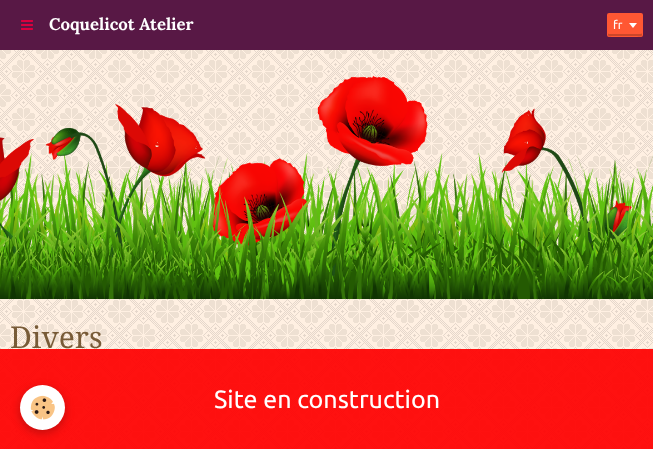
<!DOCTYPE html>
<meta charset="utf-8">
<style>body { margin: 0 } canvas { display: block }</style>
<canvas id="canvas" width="653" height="449"></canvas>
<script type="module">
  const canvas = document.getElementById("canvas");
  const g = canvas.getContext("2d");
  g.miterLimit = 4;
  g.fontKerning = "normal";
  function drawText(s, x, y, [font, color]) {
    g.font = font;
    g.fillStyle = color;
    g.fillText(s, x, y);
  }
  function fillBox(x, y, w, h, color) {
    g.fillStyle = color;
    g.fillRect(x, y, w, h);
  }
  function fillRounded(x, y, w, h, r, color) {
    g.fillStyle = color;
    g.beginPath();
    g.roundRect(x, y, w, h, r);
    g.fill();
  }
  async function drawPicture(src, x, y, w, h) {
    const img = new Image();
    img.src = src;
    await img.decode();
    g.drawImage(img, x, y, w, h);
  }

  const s1 = ["bold 16.75px Lora", "#FFFFFF"];
  const s2 = ["12px Ubuntu", "#FFFFFF"];
  const s3 = ["30px Droid Serif", "#785B37"];
  const s4 = ["25px Ubuntu", "#FFFFFF"];

  fillBox(0, 0, 653, 449, "#FFF0E2");
  await drawPicture("pic1.png", 0, 50, 653, 399);
  fillBox(0, 0, 653, 50, "#581845");
  await drawPicture("pic2.png", 21, 20, 12, 10);
  drawText("Coquelicot Atelier", 49, 30, s1);
  fillRounded(607, 13, 36, 24, 2, "#FF5733");
  g.fillStyle = "#CC4629";
  g.beginPath();
  g.moveTo(642, 33.5);
  g.bezierCurveTo(641.5, 34, 639.5, 34, 636, 34);
  g.lineTo(609, 34);
  g.bezierCurveTo(608.5, 34, 608, 33.5, 608, 32.5);
  g.bezierCurveTo(608, 37.5, 608.5, 36, 614.5, 36);
  g.lineTo(635.5, 36);
  g.bezierCurveTo(641, 36, 642, 37.5, 642, 33.5);
  g.closePath();
  g.fill();
  drawText("fr", 613, 29, s2);
  g.beginPath();
  g.moveTo(629, 23);
  g.lineTo(637, 23);
  g.lineTo(633, 28);
  g.closePath();
  g.fill();
  await drawPicture("pic3.png", 0, 75, 653, 224);
  drawText("Divers", 10, 348, s3);
  fillBox(0, 349, 653, 100, "rgba(255, 0, 0, 0.93)");
  g.fillStyle = "rgba(0, 0, 0, 0.24)";
  g.filter = "blur(5px)";
  g.beginPath();
  g.roundRect(20, 388, 45, 45, 22.5);
  g.fill();
  g.filter = "none";
  g.fillStyle = "#FFFFFF";
  g.beginPath();
  g.arc(42.5, 407.5, 22.5, 0, Math.PI * 2);
  g.fill();
  await drawPicture("pic4.png", 30, 395, 25, 25);
  drawText("Site en construction", 214, 408, s4);
</script>
